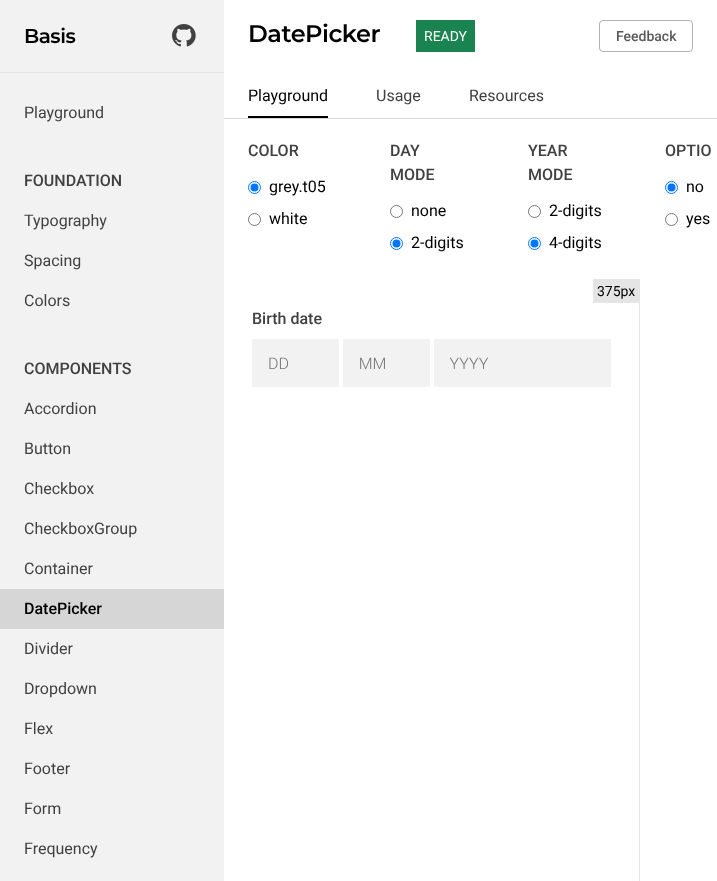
<!DOCTYPE html>
<meta charset="utf-8">
<style>body { margin: 0 } canvas { display: block }</style>
<canvas id="canvas" width="717" height="881"></canvas>
<script type="module">
  const canvas = document.getElementById("canvas");
  const g = canvas.getContext("2d");
  g.miterLimit = 4;
  g.fontKerning = "normal";
  function drawText(s, x, y, [font, color]) {
    g.font = font;
    g.fillStyle = color;
    g.fillText(s, x, y);
  }
  function fillBox(x, y, w, h, color) {
    g.fillStyle = color;
    g.fillRect(x, y, w, h);
  }
  async function drawPicture(src, x, y, w, h) {
    const img = new Image();
    img.src = src;
    await img.decode();
    g.drawImage(img, x, y, w, h);
  }

  const s1 = ["600 20px Montserrat", "#000000"];
  const s2 = ["16px Roboto", "#414141"];
  const s3 = ["500 16px Roboto", "#414141"];
  const s4 = ["500 16px Roboto", "#000000"];
  const s5 = ["600 24px Montserrat", "#000000"];
  const s6 = ["14px Roboto", "#FFFFFF"];
  const s7 = ["500 14px Roboto", "#595959"];
  const s8 = ["16px Roboto", "#000000"];
  const s9 = ["14px Roboto", "#000000"];

  fillBox(0, 0, 717, 881, "#FFFFFF");
  fillBox(0, 0, 224, 72, "#F2F2F2");
  fillBox(0, 72, 224, 1, "#E5E5E5");
  g.letterSpacing = "-0.5px";
  drawText("Basis", 24, 43, s1);
  await drawPicture("pic1.png", 172, 24, 24, 23);
  fillBox(0, 73, 224, 808, "#F2F2F2");
  g.letterSpacing = "0px";
  drawText("Playground", 24, 118, s2);
  drawText("FOUNDATION", 24, 186, s3);
  drawText("Typography", 24, 226, s2);
  drawText("Spacing", 24, 266, s2);
  drawText("Colors", 24, 306, s2);
  drawText("COMPONENTS", 24, 374, s3);
  drawText("Accordion", 24, 414, s2);
  drawText("Button", 24, 454, s2);
  drawText("Checkbox", 24, 494, s2);
  drawText("CheckboxGroup", 24, 534, s2);
  drawText("Container", 24, 574, s2);
  fillBox(0, 589, 224, 40, "#D6D6D6");
  drawText("DatePicker", 24, 614, s4);
  drawText("Divider", 24, 654, s2);
  drawText("Dropdown", 24, 694, s2);
  drawText("Flex", 24, 734, s2);
  drawText("Footer", 24, 774, s2);
  drawText("Form", 24, 814, s2);
  drawText("Frequency", 24, 854, s2);
  fillBox(224, 118, 493, 1, "#D6D6D6");
  g.letterSpacing = "-0.5px";
  drawText("DatePicker", 248, 42, s5);
  fillBox(416, 20, 59, 32, "#1A8450");
  g.letterSpacing = "0px";
  drawText("READY", 424, 41, s6);
  g.beginPath();
  g.roundRect(599.5, 20.5, 93, 31, 3.5);
  g.strokeStyle = "#B2B2B2";
  g.stroke();
  drawText("Feedback", 616, 41, s7);
  drawText("Playground", 248, 101, s8);
  fillBox(248, 116, 80, 2, "#000000");
  drawText("Usage", 376, 101, s2);
  drawText("Resources", 469, 101, s2);
  drawText("COLOR", 248, 156, s3);
  g.beginPath();
  g.arc(254.5, 187.5, 6, 0, Math.PI * 2);
  g.strokeStyle = "#0075FF";
  g.stroke();
  g.fillStyle = "#0075FF";
  g.beginPath();
  g.arc(254.5, 187.5, 4, 0, Math.PI * 2);
  g.fill();
  drawText("grey.t05", 269, 192, s8);
  g.beginPath();
  g.arc(254.5, 219.5, 6, 0, Math.PI * 2);
  g.strokeStyle = "#767676";
  g.stroke();
  drawText("white", 269, 224, s8);
  drawText("DAY", 390, 156, s3);
  drawText("MODE", 390, 180, s3);
  g.beginPath();
  g.arc(396.5, 211.5, 6, 0, Math.PI * 2);
  g.stroke();
  drawText("none", 411, 216, s8);
  g.beginPath();
  g.arc(396.5, 243.5, 6, 0, Math.PI * 2);
  g.strokeStyle = "#0075FF";
  g.stroke();
  g.fillStyle = "#0075FF";
  g.beginPath();
  g.arc(396.5, 243.5, 4, 0, Math.PI * 2);
  g.fill();
  drawText("2-digits", 411, 248, s8);
  drawText("YEAR", 528, 156, s3);
  drawText("MODE", 528, 180, s3);
  g.beginPath();
  g.arc(534.5, 211.5, 6, 0, Math.PI * 2);
  g.strokeStyle = "#767676";
  g.stroke();
  drawText("2-digits", 549, 216, s8);
  g.beginPath();
  g.arc(534.5, 243.5, 6, 0, Math.PI * 2);
  g.strokeStyle = "#0075FF";
  g.stroke();
  g.fillStyle = "#0075FF";
  g.beginPath();
  g.arc(534.5, 243.5, 4, 0, Math.PI * 2);
  g.fill();
  drawText("4-digits", 549, 248, s8);
  drawText("OPTIO", 665, 156, s3);
  g.beginPath();
  g.arc(671.5, 187.5, 6, 0, Math.PI * 2);
  g.stroke();
  g.fillStyle = "#0075FF";
  g.beginPath();
  g.arc(671.5, 187.5, 4, 0, Math.PI * 2);
  g.fill();
  drawText("no", 686, 192, s8);
  g.beginPath();
  g.arc(671.5, 219.5, 6, 0, Math.PI * 2);
  g.strokeStyle = "#767676";
  g.stroke();
  drawText("yes", 686, 224, s8);
  fillBox(639, 279, 1, 602, "#E5E5E5");
  fillBox(593, 279, 46, 24, "#E5E5E5");
  drawText("375px", 597, 296, s9);
  await drawPicture("pic2.png", 252, 312, 359, 75);
</script>
